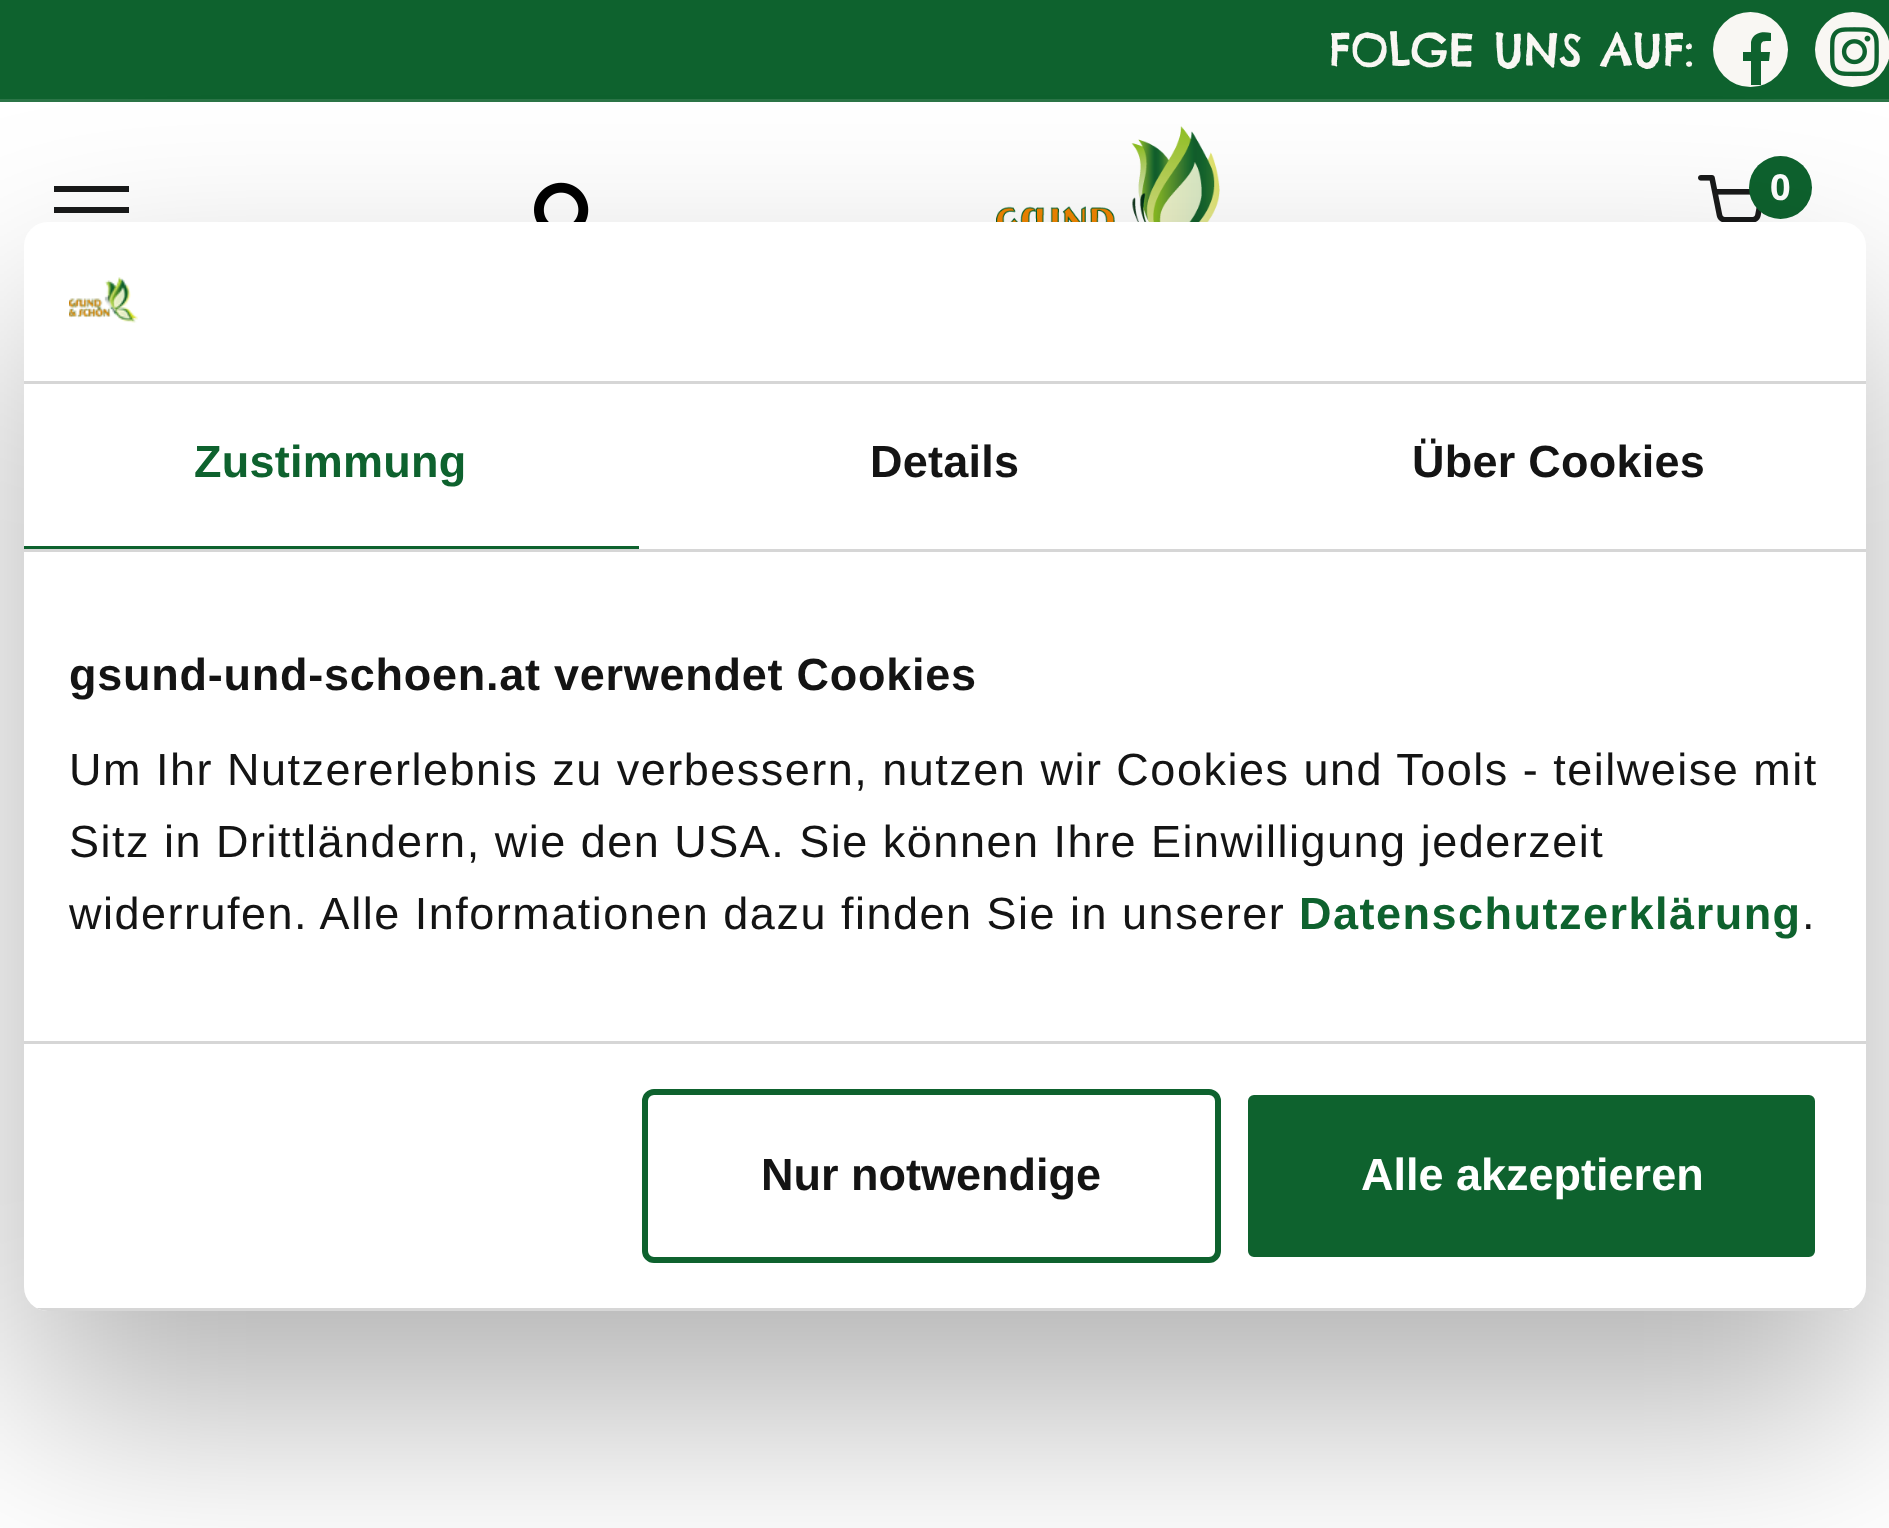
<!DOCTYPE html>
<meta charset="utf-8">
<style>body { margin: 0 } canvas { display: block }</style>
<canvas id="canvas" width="1889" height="1528"></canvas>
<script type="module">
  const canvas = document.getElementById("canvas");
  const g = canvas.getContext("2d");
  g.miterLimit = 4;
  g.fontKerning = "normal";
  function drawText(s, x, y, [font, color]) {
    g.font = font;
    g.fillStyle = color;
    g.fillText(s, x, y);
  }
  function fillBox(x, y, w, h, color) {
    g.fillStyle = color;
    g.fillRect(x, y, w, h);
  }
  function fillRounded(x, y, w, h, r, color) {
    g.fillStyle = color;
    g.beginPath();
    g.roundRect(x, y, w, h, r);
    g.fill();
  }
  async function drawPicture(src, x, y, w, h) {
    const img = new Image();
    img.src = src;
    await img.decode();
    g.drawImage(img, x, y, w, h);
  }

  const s1 = ["45px Chelsea Market", "#F9F7F3"];
  const s2 = ["bold 36px Open Sans", "#FFFFFF"];
  const s3 = ["bold 45px Liberation Sans", "#0E622E"];
  const s4 = ["bold 45px Liberation Sans", "#141414"];
  const s5 = ["45px Liberation Sans", "#141414"];
  const s6 = ["bold 45px Liberation Sans", "#FFFFFF"];

  fillBox(0, 0, 1889, 1528, "#FFFFFF");
  fillBox(0, 0, 1889, 99, "#0E622E");
  fillBox(0, 99, 1889, 3, "#2B7547");
  drawText("FOLGE UNS AUF:", 1329, 66, s1);
  g.beginPath();
  g.arc(1750.5, 49.5, 37.5, 0, Math.PI * 2);
  g.fill();
  g.fillStyle = "#0E622E";
  g.beginPath();
  g.moveTo(1771, 33);
  g.lineTo(1771, 41);
  g.bezierCurveTo(1760, 41, 1761, 41, 1761, 52);
  g.lineTo(1770, 52);
  g.lineTo(1769, 61);
  g.lineTo(1761, 61);
  g.lineTo(1761, 85);
  g.lineTo(1751, 85);
  g.lineTo(1751, 61);
  g.lineTo(1743, 61);
  g.lineTo(1743, 52);
  g.lineTo(1751, 52);
  g.lineTo(1751, 42);
  g.bezierCurveTo(1753, 32, 1763, 31, 1771, 33);
  g.closePath();
  g.fill();
  g.fillStyle = "#F9F7F3";
  g.beginPath();
  g.arc(1852.5, 49.5, 37.5, 0, Math.PI * 2);
  g.fill();
  await drawPicture("pic1.png", 1830, 27, 49, 50);
  fillBox(54, 186, 75, 6, "#191A1A");
  fillBox(54, 207, 75, 6, "#191A1A");
  await drawPicture("pic2.png", 534, 182, 55, 40);
  await drawPicture("pic3.png", 996, 126, 224, 96);
  await drawPicture("pic4.png", 1698, 175, 64, 47);
  g.fillStyle = "#0E622E";
  g.beginPath();
  g.arc(1780.5, 187.5, 31.5, 0, Math.PI * 2);
  g.fill();
  drawText("0", 1770, 200, s2);
  g.fillStyle = "rgba(0, 0, 0, 0.3)";
  g.filter = "blur(102px)";
  g.beginPath();
  g.roundRect(24, 318, 1842, 1089, 24);
  g.fill();
  g.filter = "none";
  fillRounded(24, 222, 1842, 1089, 24, "#FFFFFF");
  fillBox(24, 381, 1842, 3, "#D6D6D6");
  await drawPicture("pic5.png", 69, 277, 69, 46);
  fillBox(24, 549, 1842, 3, "#D6D6D6");
  fillBox(24, 546, 615, 3, "#0E622E");
  g.letterSpacing = "0.25px";
  drawText("Zustimmung", 194, 477, s3);
  drawText("Details", 870, 477, s4);
  drawText("Über Cookies", 1412, 477, s4);
  fillBox(24, 1041, 1842, 3, "#D6D6D6");
  g.letterSpacing = "0.75px";
  drawText("gsund-und-schoen.at verwendet Cookies", 69, 690, s4);
  g.letterSpacing = "1.5px";
  drawText("Um Ihr Nutzererlebnis zu verbessern, nutzen wir Cookies und Tools - teilweise mit", 69, 785, s5);
  drawText("Sitz in Drittländern, wie den USA. Sie können Ihre Einwilligung jederzeit", 69, 857, s5);
  drawText("widerrufen. Alle Informationen dazu finden Sie in unserer", 69, 929, s5);
  drawText("Datenschutzerklärung", 1299, 929, s3);
  drawText(".", 1802, 929, s5);
  g.save();
  g.beginPath();
  g.roundRect(24, 222, 1842, 1089, 24);
  g.clip();
  fillBox(36, 1308, 1818, 3, "#D6D6D6");
  g.restore();
  g.beginPath();
  g.roundRect(645, 1092, 573, 168, 9);
  g.strokeStyle = "#0E622E";
  g.lineWidth = 6;
  g.stroke();
  g.letterSpacing = "0px";
  drawText("Nur notwendige", 761, 1190, s4);
  g.fillStyle = "#0E622E";
  g.beginPath();
  g.roundRect(1245, 1092, 573, 168, 9);
  g.fill();
  g.strokeStyle = "#FFFFFF";
  g.stroke();
  drawText("Alle akzeptieren", 1361, 1190, s6);
</script>
